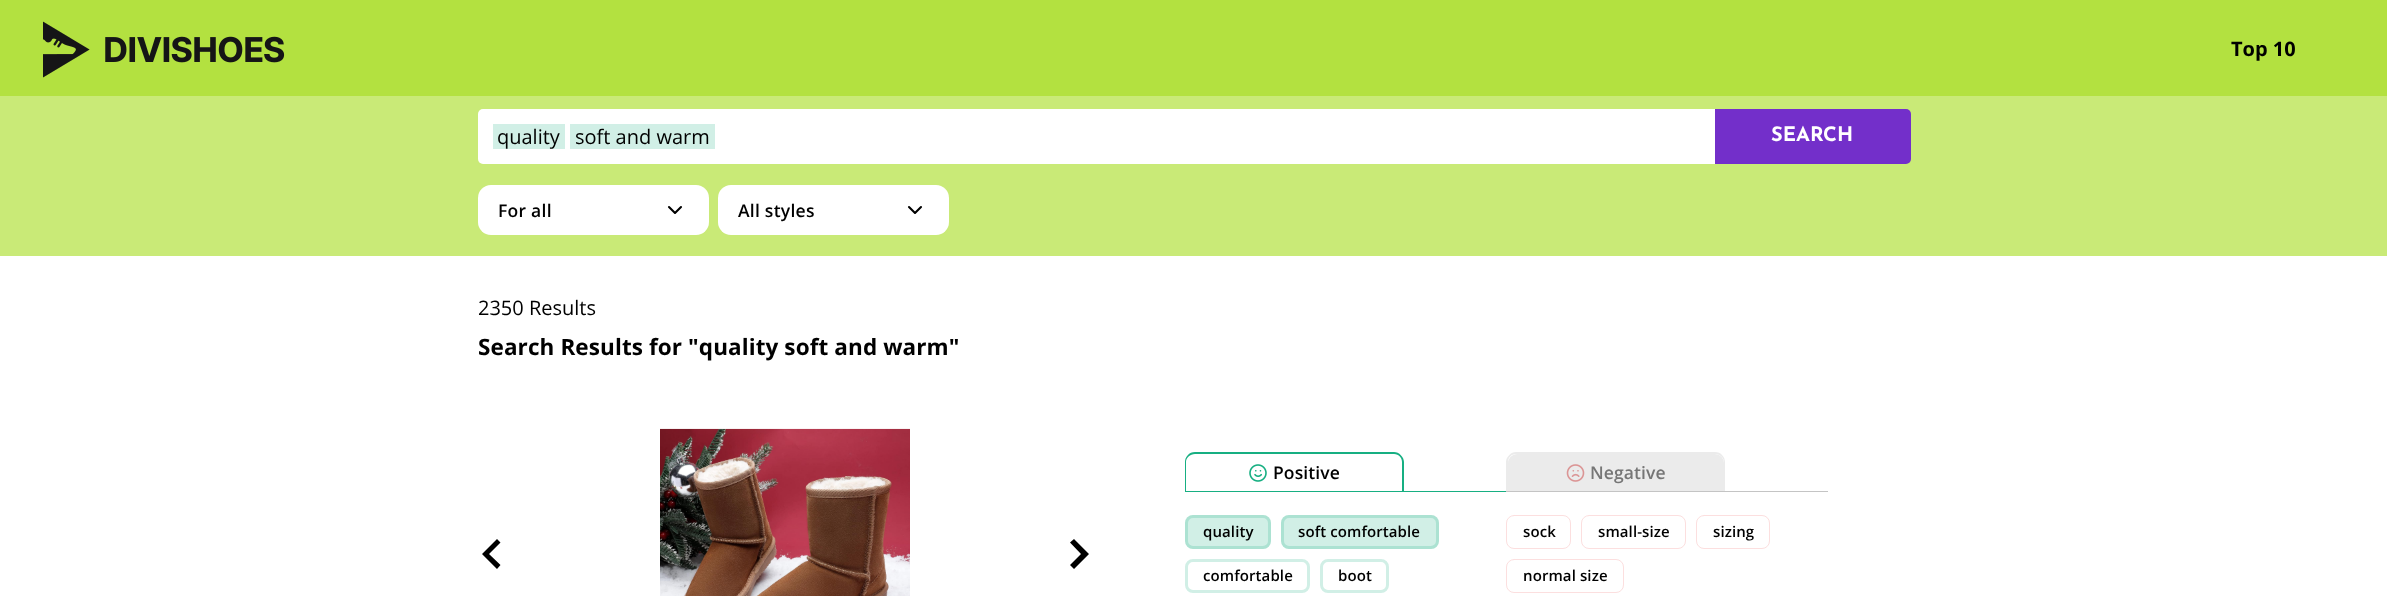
<!DOCTYPE html>
<meta charset="utf-8">
<style>body { margin: 0 } canvas { display: block }</style>
<canvas id="canvas" width="2387" height="596"></canvas>
<script type="module">
  const canvas = document.getElementById("canvas");
  const g = canvas.getContext("2d");
  g.miterLimit = 4;
  g.fontKerning = "normal";
  function drawText(s, x, y, [font, color]) {
    g.font = font;
    g.fillStyle = color;
    g.fillText(s, x, y);
  }
  function fillBox(x, y, w, h, color) {
    g.fillStyle = color;
    g.fillRect(x, y, w, h);
  }
  function fillRounded(x, y, w, h, r, color) {
    g.fillStyle = color;
    g.beginPath();
    g.roundRect(x, y, w, h, r);
    g.fill();
  }
  async function drawPicture(src, x, y, w, h) {
    const img = new Image();
    img.src = src;
    await img.decode();
    g.drawImage(img, x, y, w, h);
  }

  const s1 = ["bold 20px Open Sans", "#000000"];
  const s2 = ["20px Open Sans", "#000000"];
  const s3 = ["bold 20px Josefin Sans", "#FFFFFF"];
  const s4 = ["600 17.5px Open Sans", "#000000"];
  const s5 = ["bold 22.5px Open Sans", "#000000"];
  const s6 = ["600 17.5px Open Sans", "#767676"];
  const s7 = ["600 15px Open Sans", "#000000"];

  fillBox(0, 0, 2387, 596, "#FFFFFF");
  fillBox(0, 0, 2387, 96, "#B3E140");
  await drawPicture("pic1.png", 43, 21, 242, 57);
  drawText("Top 10", 2231, 56, s1);
  fillBox(0, 96, 2387, 160, "#C9EA77");
  g.fillStyle = "#FFFFFF";
  g.beginPath();
  g.roundRect(478, 109, 1237, 55, [5, 0, 0, 5]);
  g.fill();
  fillBox(493, 124, 72, 25, "#D1EFE6");
  drawText("quality", 497, 144, s2);
  fillBox(570, 124, 145, 25, "#D1EFE6");
  drawText("soft and warm", 575, 144, s2);
  g.fillStyle = "#732FCA";
  g.beginPath();
  g.roundRect(1715, 109, 196, 55, [0, 5, 5, 0]);
  g.fill();
  drawText("SEARCH", 1771, 141, s3);
  fillRounded(478, 185, 231, 50, 13, "#FFFFFF");
  g.letterSpacing = "0.25px";
  drawText("For all", 498, 217, s4);
  g.beginPath();
  g.moveTo(669, 207);
  g.lineTo(675, 213);
  g.lineTo(681, 207);
  g.strokeStyle = "#000000";
  g.lineWidth = 2.1;
  g.lineCap = "round";
  g.lineJoin = "round";
  g.stroke();
  fillRounded(718, 185, 231, 50, 13, "#FFFFFF");
  drawText("All styles", 738, 217, s4);
  g.beginPath();
  g.moveTo(909, 207);
  g.lineTo(915, 213);
  g.lineTo(921, 207);
  g.stroke();
  g.letterSpacing = "0px";
  drawText("2350 Results", 478, 315, s2);
  g.letterSpacing = "0.1px";
  drawText("Search Results for \"quality soft and warm\"", 478, 355, s5);
  g.beginPath();
  g.moveTo(497, 539);
  g.lineTo(500.5, 542.5);
  g.lineTo(489, 554);
  g.lineTo(500.5, 565);
  g.lineTo(497, 569);
  g.lineTo(482, 554);
  g.closePath();
  g.fill();
  await drawPicture("pic2.png", 660, 428, 250, 168);
  g.beginPath();
  g.moveTo(1070, 542.5);
  g.lineTo(1074, 539);
  g.lineTo(1089, 554);
  g.lineTo(1074, 569);
  g.lineTo(1070, 565);
  g.lineTo(1081, 554);
  g.closePath();
  g.fill();
  fillBox(1185, 491, 321, 1, "#17AF82");
  g.beginPath();
  g.moveTo(1195, 452);
  g.lineTo(1394, 452);
  g.bezierCurveTo(1399, 452, 1404, 457, 1404, 462);
  g.lineTo(1404, 491);
  g.lineTo(1185, 491);
  g.lineTo(1185, 462);
  g.bezierCurveTo(1185, 457, 1189, 452, 1195, 452);
  g.closePath();
  g.moveTo(1195, 454);
  g.lineTo(1394, 454);
  g.bezierCurveTo(1399, 454, 1402, 458, 1402, 462);
  g.lineTo(1402, 491);
  g.lineTo(1186, 491);
  g.lineTo(1186, 462);
  g.bezierCurveTo(1186, 458, 1190, 454, 1195, 454);
  g.closePath();
  g.fill("evenodd");
  await drawPicture("pic3.png", 1249, 464, 18, 18);
  drawText("Positive", 1273, 479, s4);
  fillBox(1506, 491, 322, 1, "#C4C4C4");
  g.fillStyle = "#EBEBEB";
  g.beginPath();
  g.roundRect(1508, 454, 216, 37, [9, 9, 0, 0]);
  g.fill();
  g.beginPath();
  g.moveTo(1516, 452);
  g.lineTo(1715, 452);
  g.bezierCurveTo(1721, 452, 1725, 457, 1725, 462);
  g.lineTo(1725, 491);
  g.lineTo(1506, 491);
  g.lineTo(1506, 462);
  g.bezierCurveTo(1506, 457, 1511, 452, 1516, 452);
  g.closePath();
  g.moveTo(1516, 454);
  g.lineTo(1715, 454);
  g.bezierCurveTo(1720, 454, 1724, 458, 1724, 462);
  g.lineTo(1724, 491);
  g.lineTo(1508, 491);
  g.lineTo(1508, 462);
  g.bezierCurveTo(1508, 458, 1511, 454, 1516, 454);
  g.closePath();
  g.fill("evenodd");
  await drawPicture("pic4.png", 1566, 464, 19, 18);
  drawText("Negative", 1590, 479, s6);
  fillRounded(1185, 515, 86, 34, 8, "#D1EFE6");
  g.beginPath();
  g.roundRect(1186.5, 516.5, 83, 31, 6.5);
  g.strokeStyle = "rgba(23, 175, 130, 0.2)";
  g.lineWidth = 3;
  g.lineJoin = "miter";
  g.stroke();
  drawText("quality", 1203, 537, s7);
  fillRounded(1281, 515, 158, 34, 8, "#D1EFE6");
  g.beginPath();
  g.roundRect(1282.5, 516.5, 155, 31, 6.5);
  g.stroke();
  drawText("soft comfortable", 1298, 537, s7);
  g.beginPath();
  g.roundRect(1186.5, 560.5, 122, 31, 6.5);
  g.strokeStyle = "#D1EFE6";
  g.stroke();
  drawText("comfortable", 1203, 581, s7);
  g.beginPath();
  g.roundRect(1321.5, 560.5, 66, 31, 6.5);
  g.stroke();
  drawText("boot", 1338, 581, s7);
  g.beginPath();
  g.roundRect(1506.5, 515.5, 64, 33, 7.5);
  g.strokeStyle = "#FCDFDF";
  g.lineWidth = 1;
  g.stroke();
  drawText("sock", 1523, 537, s7);
  g.beginPath();
  g.roundRect(1581.5, 515.5, 104, 33, 7.5);
  g.stroke();
  drawText("small-size", 1598, 537, s7);
  g.beginPath();
  g.roundRect(1696.5, 515.5, 73, 33, 7.5);
  g.stroke();
  drawText("sizing", 1713, 537, s7);
  g.beginPath();
  g.roundRect(1506.5, 559.5, 117, 33, 7.5);
  g.stroke();
  drawText("normal size", 1523, 581, s7);
</script>
